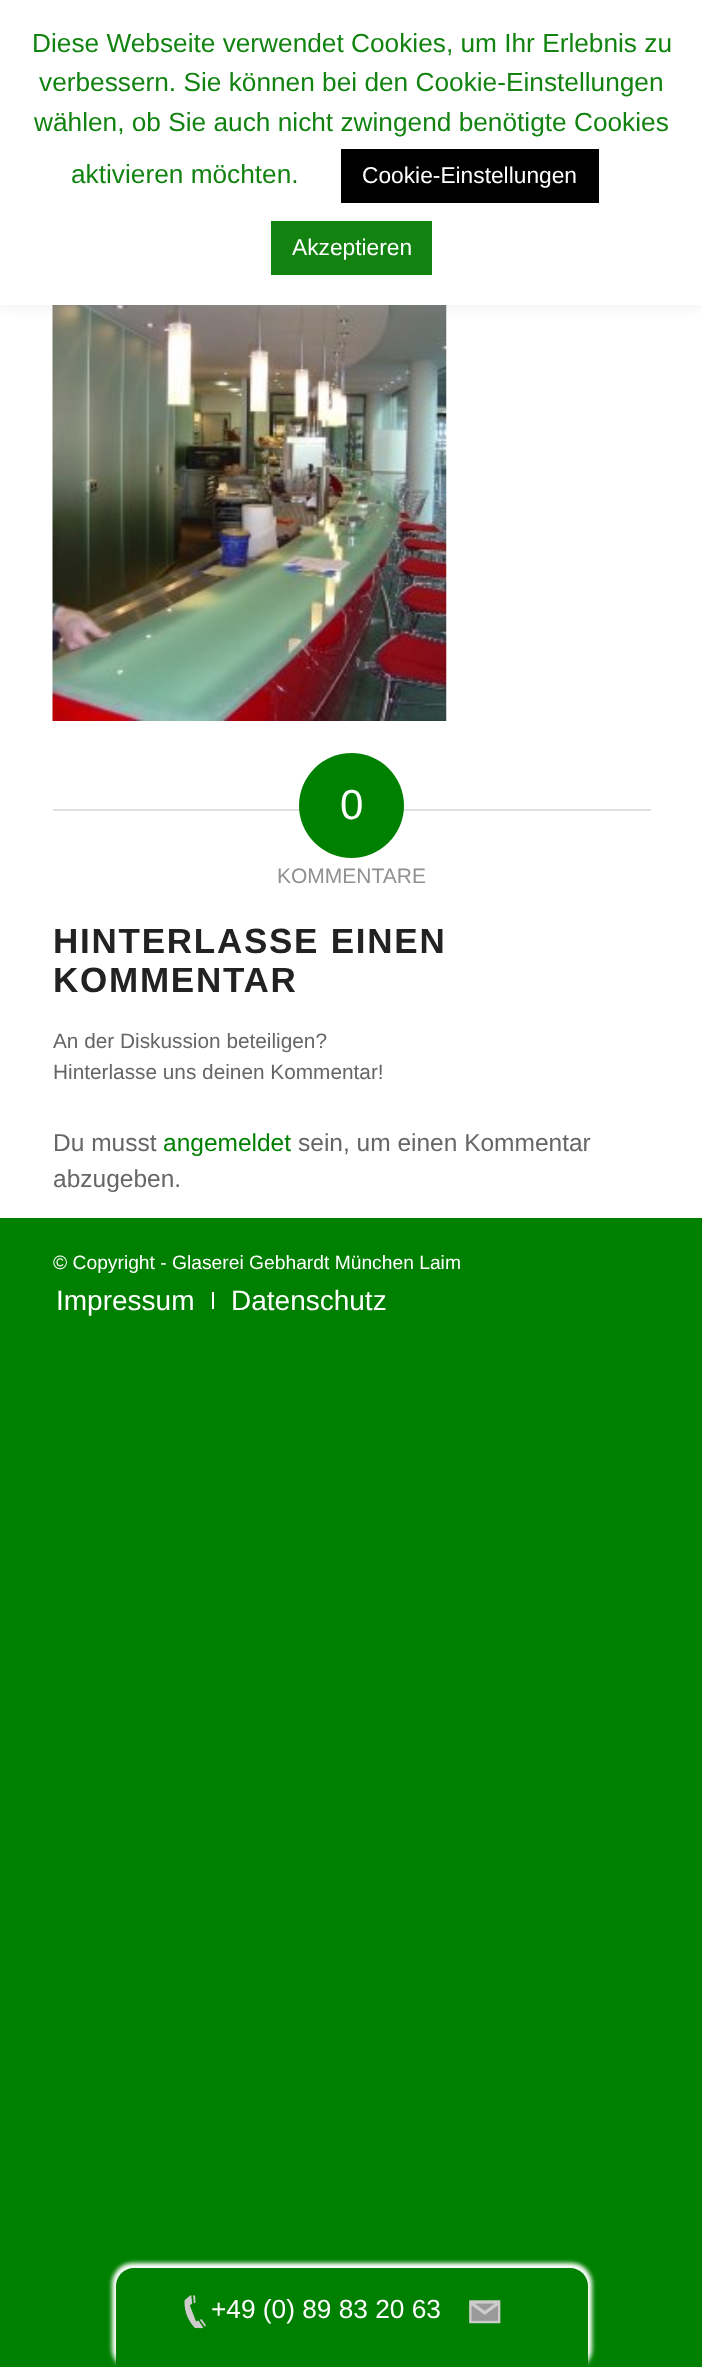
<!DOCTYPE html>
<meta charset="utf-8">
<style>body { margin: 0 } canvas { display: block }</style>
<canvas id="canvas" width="702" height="2367"></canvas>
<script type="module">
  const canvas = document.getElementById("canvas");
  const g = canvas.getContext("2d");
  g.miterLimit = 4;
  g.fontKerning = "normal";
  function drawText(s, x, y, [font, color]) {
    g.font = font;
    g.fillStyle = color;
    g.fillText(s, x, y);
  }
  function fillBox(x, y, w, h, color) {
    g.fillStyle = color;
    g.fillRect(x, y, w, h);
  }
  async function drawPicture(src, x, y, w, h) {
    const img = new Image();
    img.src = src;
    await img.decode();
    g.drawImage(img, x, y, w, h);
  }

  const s1 = ["26.25px Liberation Sans", "#128310"];
  const s2 = ["22.75px Liberation Sans", "#FFFFFF"];
  const s3 = ["42px Liberation Sans", "#FFFFFF"];
  const s4 = ["21px Liberation Sans", "#919191"];
  const s5 = ["bold 35px Liberation Sans", "#222222"];
  const s6 = ["20.8px Liberation Sans", "#666666"];
  const s7 = ["24.5px Liberation Sans", "#666666"];
  const s8 = ["24.5px Liberation Sans", "#008000"];
  const s9 = ["19.25px Liberation Sans", "#FFFFFF"];
  const s10 = ["28px Liberation Sans", "#FFFFFF"];
  const s11 = ["26.25px Liberation Sans", "#FFFFFF"];

  fillBox(0, 0, 702, 2367, "#008000");
  fillBox(0, 305, 702, 913, "#FFFFFF");
  await drawPicture("pic1.png", 52, 305, 395, 416);
  g.fillStyle = "rgba(172, 171, 171, 0.3)";
  g.filter = "blur(9px)";
  g.beginPath();
  g.rect(0, -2, 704, 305);
  g.fill();
  g.filter = "none";
  fillBox(0, 0, 702, 305, "#FFFFFF");
  drawText("Diese Webseite verwendet Cookies, um Ihr Erlebnis zu", 32, 52, s1);
  drawText("verbessern. Sie können bei den Cookie-Einstellungen", 39, 91, s1);
  drawText("wählen, ob Sie auch nicht zwingend benötigte Cookies", 34, 131, s1);
  drawText("aktivieren möchten.", 71, 183, s1);
  fillBox(341, 149, 258, 54, "#000000");
  drawText("Cookie-Einstellungen", 362, 183, s2);
  fillBox(271, 221, 161, 54, "#128310");
  drawText("Akzeptieren", 292, 255, s2);
  fillBox(53, 809, 252, 2, "#E1E1E1");
  fillBox(399, 809, 252, 2, "#E1E1E1");
  g.fillStyle = "#008000";
  g.beginPath();
  g.arc(351.5, 805.5, 52.5, 0, Math.PI * 2);
  g.fill();
  drawText("0", 340, 819, s3);
  drawText("KOMMENTARE", 277, 883, s4);
  g.letterSpacing = "1.75px";
  drawText("HINTERLASSE EINEN", 53, 953, s5);
  drawText("KOMMENTAR", 53, 992, s5);
  g.letterSpacing = "0px";
  drawText("An der Diskussion beteiligen?", 53, 1048, s6);
  drawText("Hinterlasse uns deinen Kommentar!", 53, 1079, s6);
  drawText("Du musst", 53, 1151, s7);
  drawText("angemeldet", 163, 1151, s8);
  drawText("sein, um einen Kommentar", 298, 1151, s7);
  drawText("abzugeben.", 53, 1187, s7);
  drawText("© Copyright - Glaserei Gebhardt München Laim", 53, 1269, s9);
  drawText("Impressum", 56, 1310, s10);
  fillBox(212, 1292, 2, 17, "#FFFFFF");
  drawText("Datenschutz", 231, 1310, s10);
  g.filter = "blur(2px)";
  g.beginPath();
  g.roundRect(112, 2263, 480, 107, 21);
  g.fill();
  g.filter = "none";
  g.fillStyle = "#008000";
  g.beginPath();
  g.moveTo(134, 2268);
  g.lineTo(570, 2268);
  g.bezierCurveTo(580, 2268, 588, 2276, 588, 2286);
  g.lineTo(588, 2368);
  g.lineTo(116, 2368);
  g.lineTo(116, 2286);
  g.bezierCurveTo(116, 2276, 124, 2268, 134, 2268);
  g.closePath();
  g.fill();
  await drawPicture("pic2.png", 184, 2295, 22, 34);
  drawText("+49 (0) 89 83 20 63", 211, 2318, s11);
  await drawPicture("pic3.png", 469, 2300, 32, 24);
</script>
